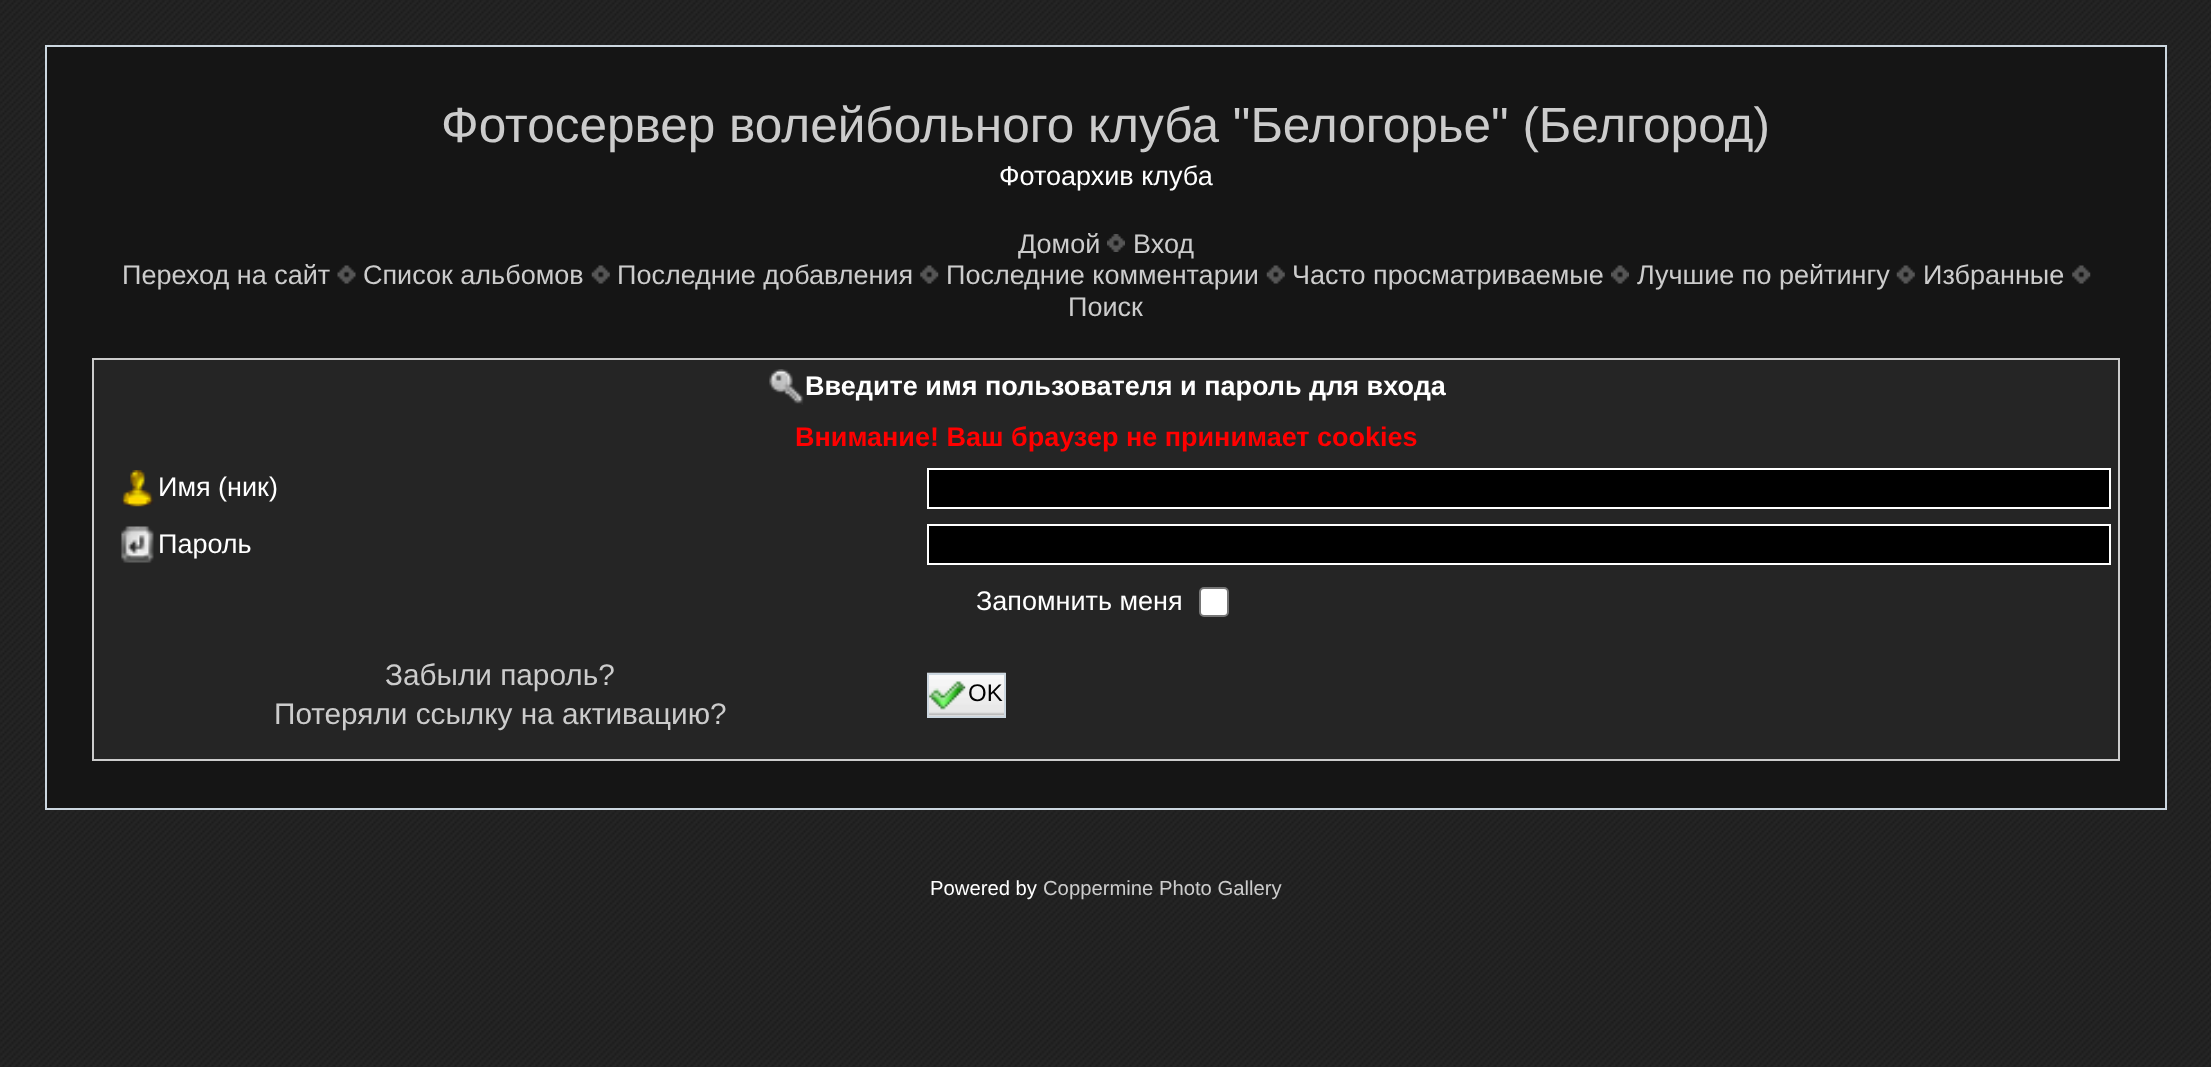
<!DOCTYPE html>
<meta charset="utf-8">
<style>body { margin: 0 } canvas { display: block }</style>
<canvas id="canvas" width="2211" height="1067"></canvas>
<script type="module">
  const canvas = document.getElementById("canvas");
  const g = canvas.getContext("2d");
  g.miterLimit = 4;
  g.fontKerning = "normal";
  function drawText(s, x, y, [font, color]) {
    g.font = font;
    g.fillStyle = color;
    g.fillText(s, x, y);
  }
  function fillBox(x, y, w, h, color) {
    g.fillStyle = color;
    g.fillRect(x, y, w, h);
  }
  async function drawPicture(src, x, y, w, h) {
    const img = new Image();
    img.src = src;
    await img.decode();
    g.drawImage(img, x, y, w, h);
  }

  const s1 = ["49.5px Liberation Sans", "#CCCCCC"];
  const s2 = ["27px Liberation Sans", "#FFFFFF"];
  const s3 = ["27px Liberation Sans", "#CCCCCC"];
  const s4 = ["bold 27px Liberation Sans", "#FFFFFF"];
  const s5 = ["bold 27px Liberation Sans", "#FF0000"];
  const s6 = ["29.75px Liberation Sans", "#CCCCCC"];
  const s7 = ["24px Liberation Sans", "#000000"];
  const s8 = ["20.25px Liberation Sans", "#FFFFFF"];
  const s9 = ["20.25px Liberation Sans", "#CCCCCC"];

  fillBox(0, 0, 2211, 1067, "#FFFFFF");
  await drawPicture("pic1.png", 0, 0, 2211, 1067);
  g.fillStyle = "#151515";
  g.beginPath();
  g.rect(46, 46, 2120, 763);
  g.fill();
  g.strokeStyle = "#CCD7E0";
  g.lineWidth = 2;
  g.stroke();
  drawText("Фотосервер волейбольного клуба \"Белогорье\" (Белгород)", 441, 142, s1);
  drawText("Фотоархив клуба", 999, 185, s2);
  drawText("Домой", 1018, 253, s3);
  await drawPicture("pic2.png", 1107, 234, 18, 18);
  drawText("Вход", 1133, 253, s3);
  drawText("Переход на сайт", 122, 284, s3);
  await drawPicture("pic3.png", 337, 265, 19, 19);
  drawText("Список альбомов", 363, 284, s3);
  await drawPicture("pic4.png", 591, 265, 19, 19);
  drawText("Последние добавления", 617, 284, s3);
  await drawPicture("pic5.png", 920, 265, 19, 19);
  drawText("Последние комментарии", 946, 284, s3);
  await drawPicture("pic6.png", 1266, 265, 19, 19);
  drawText("Часто просматриваемые", 1292, 284, s3);
  await drawPicture("pic7.png", 1611, 265, 18, 19);
  drawText("Лучшие по рейтингу", 1637, 284, s3);
  await drawPicture("pic8.png", 1896, 265, 19, 19);
  drawText("Избранные", 1923, 284, s3);
  await drawPicture("pic9.png", 2072, 265, 19, 19);
  drawText("Поиск", 1068, 316, s3);
  g.fillStyle = "#252525";
  g.beginPath();
  g.rect(93, 359, 2026, 401);
  g.fill();
  g.strokeStyle = "#CCCCCC";
  g.stroke();
  await drawPicture("pic10.png", 769, 369, 35, 36);
  drawText("Введите имя пользователя и пароль для входа", 805, 395, s4);
  drawText("Внимание! Ваш браузер не принимает cookies", 795, 446, s5);
  await drawPicture("pic11.png", 121, 470, 33, 37);
  drawText("Имя (ник)", 158, 496, s2);
  g.fillStyle = "#000000";
  g.beginPath();
  g.rect(928, 469, 1182, 39);
  g.fill();
  g.strokeStyle = "#FFFFFF";
  g.stroke();
  await drawPicture("pic12.png", 121, 526, 33, 37);
  drawText("Пароль", 158, 553, s2);
  g.fillStyle = "#000000";
  g.beginPath();
  g.rect(928, 525, 1182, 39);
  g.fill();
  g.stroke();
  drawText("Запомнить меня", 976, 610, s2);
  g.beginPath();
  g.roundRect(1200, 588, 28, 28, 4);
  g.fill();
  g.strokeStyle = "#767676";
  g.stroke();
  drawText("Забыли пароль?", 385, 685, s6);
  drawText("Потеряли ссылку на активацию?", 274, 724, s6);
  await drawPicture("pic13.png", 927, 672, 79, 44);
  g.strokeStyle = "#CCD7E0";
  g.strokeRect(928, 674, 77, 43);
  await drawPicture("pic14.png", 929, 681, 37, 29);
  drawText("OK", 968, 701, s7);
  drawText("Powered by", 930, 895, s8);
  drawText("Coppermine Photo Gallery", 1043, 895, s9);
</script>
